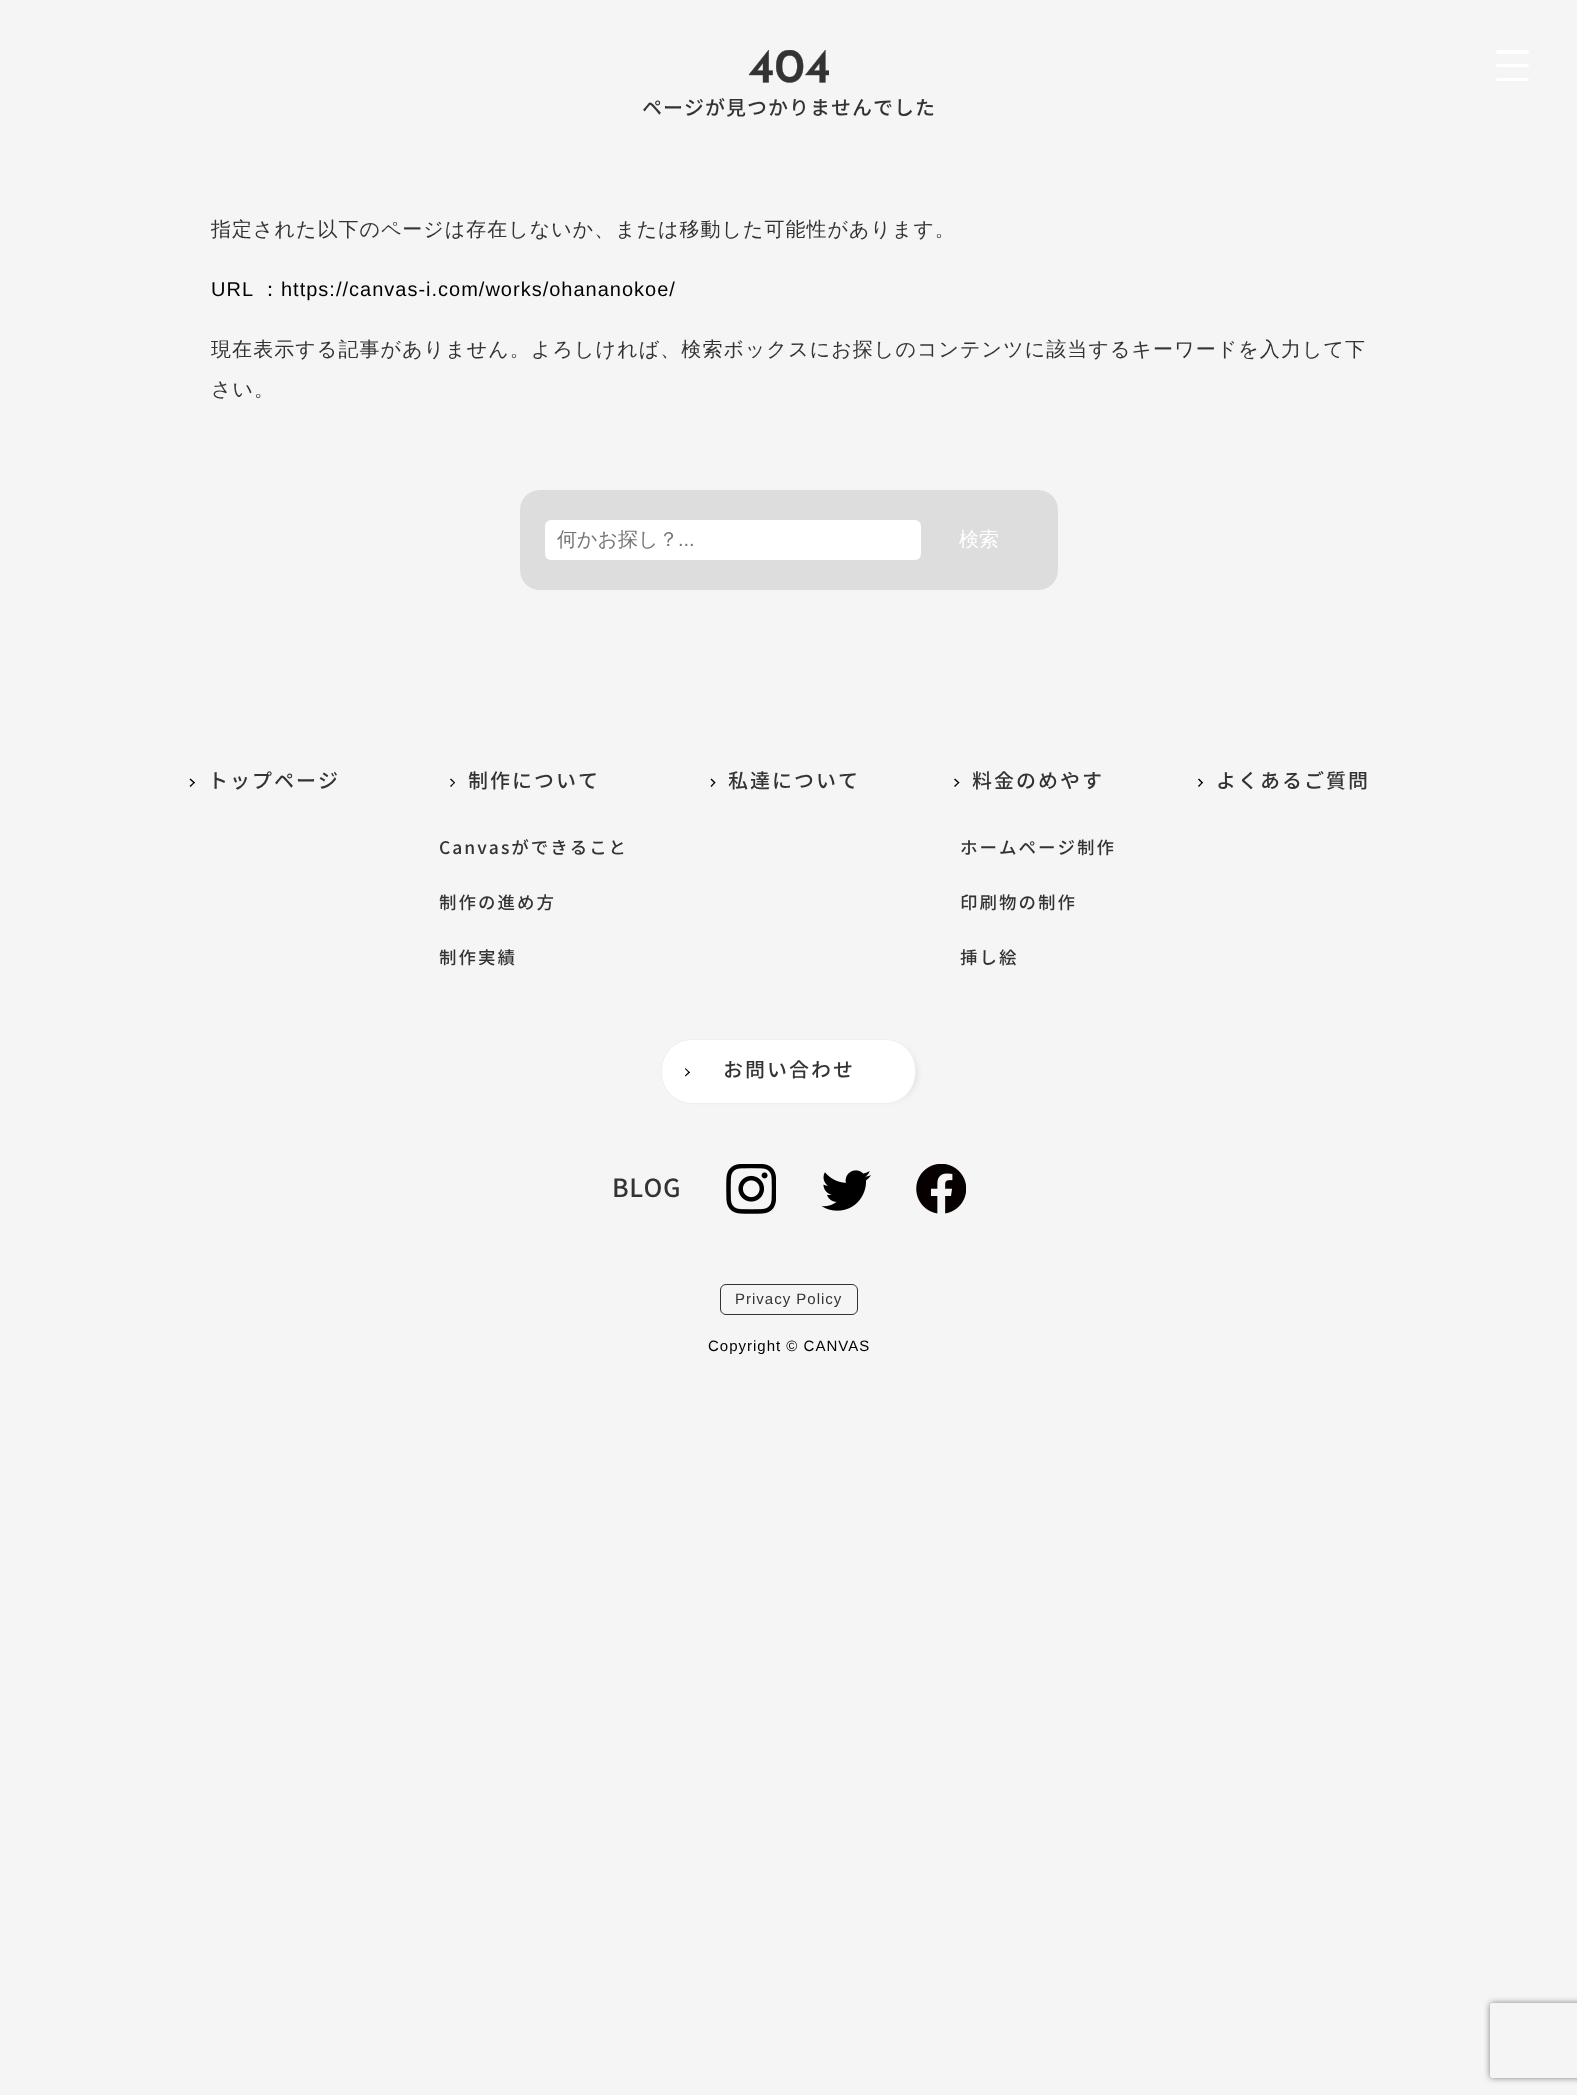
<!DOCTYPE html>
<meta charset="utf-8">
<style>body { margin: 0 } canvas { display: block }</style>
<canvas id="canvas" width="1577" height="2095"></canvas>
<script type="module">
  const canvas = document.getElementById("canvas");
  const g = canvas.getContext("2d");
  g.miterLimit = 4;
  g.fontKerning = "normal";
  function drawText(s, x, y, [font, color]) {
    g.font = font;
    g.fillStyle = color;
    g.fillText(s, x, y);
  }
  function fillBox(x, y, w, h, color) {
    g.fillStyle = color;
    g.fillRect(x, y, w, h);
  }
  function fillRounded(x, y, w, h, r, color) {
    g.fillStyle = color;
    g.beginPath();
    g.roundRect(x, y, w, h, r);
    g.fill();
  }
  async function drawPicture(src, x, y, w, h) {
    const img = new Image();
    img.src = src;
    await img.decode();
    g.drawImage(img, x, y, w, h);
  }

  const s1 = ["500 20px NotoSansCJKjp", "#333333"];
  const s2 = ["500 20px WenQuanYi Zen Hei", "#333333"];
  const s3 = ["20px Liberation Sans", "#000000"];
  const s4 = ["500 20px WenQuanYi Zen Hei", "#000000"];
  const s5 = ["500 20px WenQuanYi Zen Hei", "#757575"];
  const s6 = ["20px Liberation Sans", "#757575"];
  const s7 = ["500 20px WenQuanYi Zen Hei", "#FFFFFF"];
  const s8 = ["500 17.5px NotoSansCJKjp", "#333333"];
  const s9 = ["500 25px NotoSansCJKjp", "#333333"];
  const s10 = ["15px Liberation Sans", "#333333"];
  const s11 = ["15px Liberation Sans", "#000000"];

  fillBox(0, 0, 1577, 2095, "#F5F5F5");
  fillRounded(1496, 64, 33, 3, 1.5, "#FFFFFF");
  fillRounded(1496, 50, 33, 4, 2, "#FFFFFF");
  fillRounded(1496, 78, 33, 3, 1.5, "#FFFFFF");
  await drawPicture("pic1.png", 749, 50, 80, 33);
  g.letterSpacing = "1px";
  drawText("ページが見つかりませんでした", 642, 115, s1);
  drawText("指定された以下のページは存在しないか、または移動した可能性があります。", 211, 236, s2);
  drawText("URL", 211, 296, s3);
  drawText("：", 260, 296, s4);
  drawText("https://canvas-i.com/works/ohananokoe/", 281, 296, s3);
  g.letterSpacing = "1.08px";
  drawText("現在表示する記事がありません。よろしければ、検索ボックスにお探しのコンテンツに該当するキーワードを入力して下", 211, 356, s2);
  g.letterSpacing = "1px";
  drawText("さい。", 211, 396, s2);
  fillRounded(520, 490, 538, 100, 20, "#DDDDDD");
  fillRounded(545, 520, 376, 40, 6, "#FFFFFF");
  g.letterSpacing = "0px";
  drawText("何かお探し？", 557, 546, s5);
  drawText("...", 678, 546, s6);
  drawText("検索", 959, 546, s7);
  g.fillStyle = "#000000";
  g.beginPath();
  g.moveTo(190.5, 778.5);
  g.lineTo(195, 782.5);
  g.lineTo(194, 783.5);
  g.lineTo(189.5, 779.5);
  g.closePath();
  g.fill();
  g.beginPath();
  g.moveTo(194, 782);
  g.lineTo(195, 782.5);
  g.lineTo(190.5, 787);
  g.lineTo(189.5, 786);
  g.closePath();
  g.fill();
  g.letterSpacing = "2px";
  drawText("トップページ", 208, 788, s1);
  g.fillStyle = "#000000";
  g.beginPath();
  g.moveTo(451, 778.5);
  g.lineTo(455, 782.5);
  g.lineTo(454.5, 783.5);
  g.lineTo(450, 779.5);
  g.closePath();
  g.fill();
  g.beginPath();
  g.moveTo(454.5, 782);
  g.lineTo(455, 782.5);
  g.lineTo(451, 787);
  g.lineTo(450, 786);
  g.closePath();
  g.fill();
  drawText("制作について", 468, 788, s1);
  drawText("Canvasができること", 439, 854, s8);
  drawText("制作の進め方", 439, 909, s8);
  drawText("制作実績", 439, 964, s8);
  g.fillStyle = "#000000";
  g.beginPath();
  g.moveTo(711.5, 778.5);
  g.lineTo(715.5, 782.5);
  g.lineTo(714.5, 783.5);
  g.lineTo(710.5, 779.5);
  g.closePath();
  g.fill();
  g.beginPath();
  g.moveTo(714.5, 782);
  g.lineTo(715.5, 782.5);
  g.lineTo(711.5, 787);
  g.lineTo(710.5, 786);
  g.closePath();
  g.fill();
  drawText("私達について", 728, 788, s1);
  g.fillStyle = "#000000";
  g.beginPath();
  g.moveTo(955, 778.5);
  g.lineTo(959.5, 782.5);
  g.lineTo(958.5, 783.5);
  g.lineTo(954, 779.5);
  g.closePath();
  g.fill();
  g.beginPath();
  g.moveTo(958.5, 782);
  g.lineTo(959.5, 782.5);
  g.lineTo(955, 787);
  g.lineTo(954, 786);
  g.closePath();
  g.fill();
  drawText("料金のめやす", 972, 788, s1);
  drawText("ホームページ制作", 960, 854, s8);
  drawText("印刷物の制作", 960, 909, s8);
  drawText("挿し絵", 960, 964, s8);
  g.fillStyle = "#000000";
  g.beginPath();
  g.moveTo(1199, 778.5);
  g.lineTo(1203, 782.5);
  g.lineTo(1202, 783.5);
  g.lineTo(1198, 779.5);
  g.closePath();
  g.fill();
  g.beginPath();
  g.moveTo(1202, 782);
  g.lineTo(1203, 782.5);
  g.lineTo(1199, 787);
  g.lineTo(1198, 786);
  g.closePath();
  g.fill();
  drawText("よくあるご質問", 1216, 788, s1);
  g.fillStyle = "rgba(0, 0, 0, 0.5)";
  g.filter = "blur(6px)";
  g.beginPath();
  g.roundRect(680, 1053, 230, 40, 19);
  g.fill();
  g.filter = "none";
  g.fillStyle = "#FFFFFF";
  g.beginPath();
  g.roundRect(661.5, 1039.5, 254, 64, 30.5);
  g.fill();
  g.strokeStyle = "#EFEFEF";
  g.stroke();
  g.fillStyle = "#000000";
  g.beginPath();
  g.moveTo(685.5, 1068);
  g.lineTo(690, 1072.5);
  g.lineTo(689, 1073);
  g.lineTo(685, 1069);
  g.closePath();
  g.fill();
  g.beginPath();
  g.moveTo(689, 1071.5);
  g.lineTo(690, 1072.5);
  g.lineTo(685.5, 1076.5);
  g.lineTo(685, 1075.5);
  g.closePath();
  g.fill();
  drawText("お問い合わせ", 723, 1077, s1);
  g.letterSpacing = "0.5px";
  drawText("BLOG", 612, 1197, s9);
  await drawPicture("pic2.png", 726, 1164, 50, 50);
  await drawPicture("pic3.png", 821, 1170, 50, 41);
  await drawPicture("pic4.png", 916, 1164, 50, 50);
  g.beginPath();
  g.roundRect(720.5, 1284.5, 137, 30, 5.5);
  g.strokeStyle = "#333333";
  g.stroke();
  g.letterSpacing = "1px";
  drawText("Privacy Policy", 735, 1304, s10);
  drawText("Copyright © CANVAS", 708, 1351, s11);
  g.save();
  g.beginPath();
  g.moveTo(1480, 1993);
  g.lineTo(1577, 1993);
  g.lineTo(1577, 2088);
  g.lineTo(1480, 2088);
  g.closePath();
  g.moveTo(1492.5, 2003);
  g.lineTo(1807.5, 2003);
  g.bezierCurveTo(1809, 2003, 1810, 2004, 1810, 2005.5);
  g.lineTo(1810, 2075.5);
  g.bezierCurveTo(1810, 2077, 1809, 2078, 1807.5, 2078);
  g.lineTo(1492.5, 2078);
  g.bezierCurveTo(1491, 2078, 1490, 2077, 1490, 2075.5);
  g.lineTo(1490, 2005.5);
  g.bezierCurveTo(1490, 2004, 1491, 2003, 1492.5, 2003);
  g.closePath();
  g.clip("evenodd");
  g.fillStyle = "#808080";
  g.filter = "blur(3px)";
  g.beginPath();
  g.roundRect(1490, 2003, 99, 75, 2.5);
  g.fill();
  g.filter = "none";
  g.restore();
</script>
